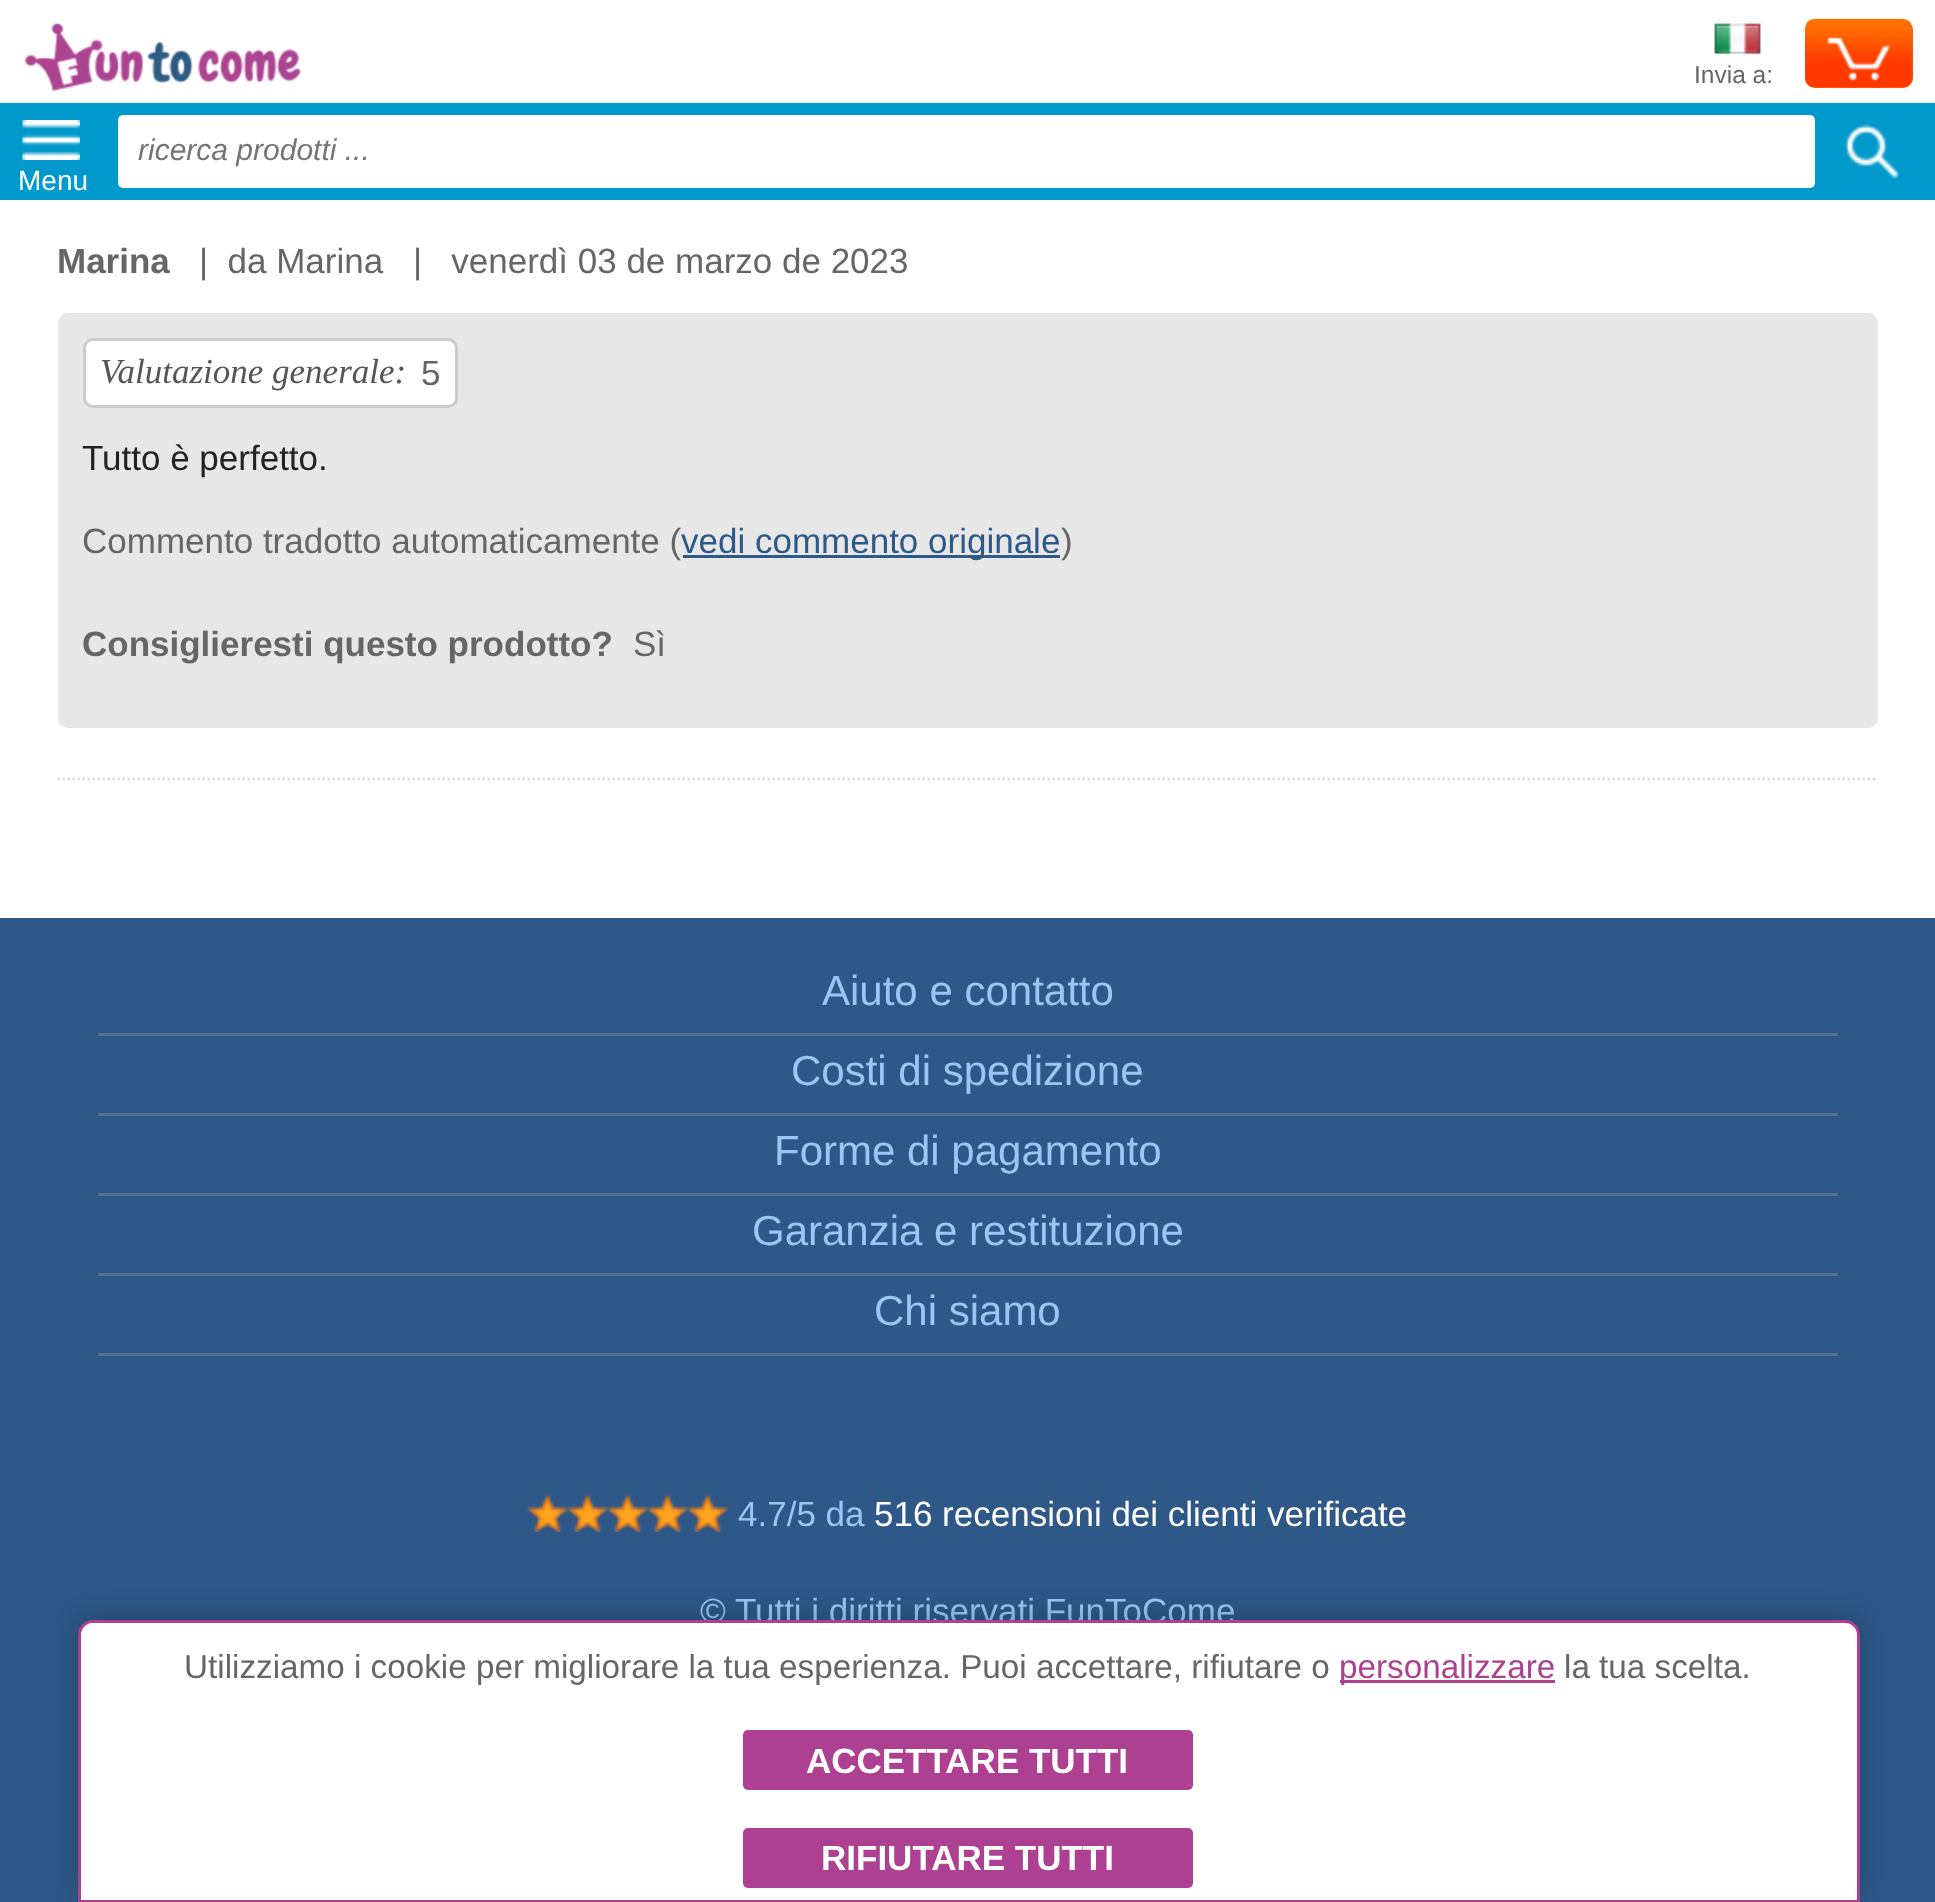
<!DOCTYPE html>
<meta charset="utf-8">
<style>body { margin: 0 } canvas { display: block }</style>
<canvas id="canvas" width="1935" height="1902"></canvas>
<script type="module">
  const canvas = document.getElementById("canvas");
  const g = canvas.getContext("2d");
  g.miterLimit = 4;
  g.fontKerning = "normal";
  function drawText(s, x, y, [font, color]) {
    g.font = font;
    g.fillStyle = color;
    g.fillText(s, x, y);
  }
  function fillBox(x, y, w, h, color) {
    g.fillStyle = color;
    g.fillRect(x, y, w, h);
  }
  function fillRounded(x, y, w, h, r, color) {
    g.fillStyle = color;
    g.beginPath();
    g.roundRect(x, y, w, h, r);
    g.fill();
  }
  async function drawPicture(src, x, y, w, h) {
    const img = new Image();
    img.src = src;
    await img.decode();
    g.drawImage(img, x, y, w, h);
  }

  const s1 = ["24.5px Liberation Sans", "#666666"];
  const s2 = ["italic 30px Liberation Sans", "#757575"];
  const s3 = ["28px Liberation Sans", "#FFFFFF"];
  const s4 = ["bold 35px Liberation Sans", "#666666"];
  const s5 = ["35px Liberation Sans", "#666666"];
  const s6 = ["italic 35px Liberation Serif", "#555555"];
  const s7 = ["35px Liberation Sans", "#222222"];
  const s8 = ["35px Liberation Sans", "#2C5987"];
  const s9 = ["42px Liberation Sans", "#9AC6F5"];
  const s10 = ["35px Liberation Sans", "#9AC6F5"];
  const s11 = ["35px Liberation Sans", "#FFFFFF"];
  const s12 = ["33.25px Liberation Sans", "#666666"];
  const s13 = ["33.25px Liberation Sans", "#AD4091"];
  const s14 = ["bold 35px Liberation Sans", "#FFFFFF"];

  fillBox(0, 0, 1935, 1902, "#FFFFFF");
  await drawPicture("pic1.png", 24, 23, 277, 69);
  await drawPicture("pic2.png", 1714, 23, 47, 32);
  drawText("Invia a:", 1694, 83, s1);
  fillRounded(1805, 20, 108, 68, 10, "#FF5D00");
  await drawPicture("pic3.png", 1805, 18, 108, 70);
  await drawPicture("pic4.png", 1827, 37, 63, 44);
  fillBox(0, 103, 1935, 97, "#0099CC");
  fillRounded(118, 115, 1697, 73, 5, "#FFFFFF");
  drawText("ricerca prodotti ...", 138, 160, s2);
  await drawPicture("pic5.png", 1844, 124, 55, 55);
  await drawPicture("pic6.png", 22, 120, 58, 40);
  drawText("Menu", 18, 190, s3);
  g.beginPath();
  g.moveTo(57.5, 779);
  g.lineTo(1877.5, 779);
  g.strokeStyle = "#DCDCDC";
  g.lineWidth = 2.5;
  g.setLineDash([2.5, 2.5]);
  g.stroke();
  drawText("Marina", 57, 273, s4);
  drawText("|  da Marina", 199, 273, s5);
  drawText("|   venerdì 03 de marzo de 2023", 413, 273, s5);
  fillRounded(58, 313, 1820, 415, 10, "#E7E7E7");
  g.fillStyle = "#FFFFFF";
  g.beginPath();
  g.roundRect(84.5, 339.5, 372, 67, 8.5);
  g.fill();
  g.strokeStyle = "#CCCCCC";
  g.lineWidth = 3;
  g.setLineDash([]);
  g.stroke();
  drawText("Valutazione generale:", 100, 383, s6);
  drawText("5", 421, 385, s5);
  drawText("Tutto è perfetto.", 82, 470, s7);
  drawText("Commento tradotto automaticamente (", 82, 553, s5);
  fillBox(683, 555, 377, 3, "#2C5987");
  drawText("vedi commento originale", 681, 553, s8);
  drawText(")", 1061, 553, s5);
  drawText("Consiglieresti questo prodotto?", 82, 656, s4);
  drawText("Sì", 633, 656, s5);
  fillBox(0, 918, 1935, 984, "#2E5888");
  fillBox(98, 1033, 1740, 3, "#527194");
  drawText("Aiuto e contatto", 822, 1005, s9);
  fillBox(98, 1113, 1740, 3, "#527194");
  drawText("Costi di spedizione", 791, 1085, s9);
  fillBox(98, 1193, 1740, 3, "#527194");
  drawText("Forme di pagamento", 774, 1165, s9);
  fillBox(98, 1273, 1740, 3, "#527194");
  drawText("Garanzia e restituzione", 752, 1245, s9);
  fillBox(98, 1353, 1740, 3, "#527194");
  drawText("Chi siamo", 874, 1325, s9);
  await drawPicture("pic7.png", 527, 1494, 201, 38);
  drawText("4.7/5 da", 738, 1526, s10);
  drawText("516 recensioni dei clienti verificate", 874, 1526, s11);
  drawText("© Tutti i diritti riservati FunToCome", 700, 1623, s10);
  g.fillStyle = "rgba(0, 0, 0, 0.2)";
  g.filter = "blur(12.5px)";
  g.beginPath();
  g.roundRect(78, 1615, 1782, 283, 15);
  g.fill();
  g.filter = "none";
  g.fillStyle = "#FFFFFF";
  g.beginPath();
  g.moveTo(93, 1621.5);
  g.lineTo(1845, 1621.5);
  g.bezierCurveTo(1852.5, 1621.5, 1858.5, 1627.5, 1858.5, 1635);
  g.lineTo(1858.5, 1901.5);
  g.lineTo(79.5, 1901.5);
  g.lineTo(79.5, 1635);
  g.bezierCurveTo(79.5, 1627.5, 85.5, 1621.5, 93, 1621.5);
  g.closePath();
  g.fill();
  g.strokeStyle = "#AD4091";
  g.stroke();
  drawText("Utilizziamo i cookie per migliorare la tua esperienza. Puoi accettare, rifiutare o", 184, 1678, s12);
  fillBox(1340, 1680, 215, 3, "#AD4091");
  drawText("personalizzare", 1339, 1678, s13);
  drawText("la tua scelta.", 1564, 1678, s12);
  fillRounded(743, 1730, 450, 60, 5, "#AD4091");
  drawText("ACCETTARE TUTTI", 806, 1773, s14);
  fillRounded(743, 1828, 450, 60, 5, "#AD4091");
  drawText("RIFIUTARE TUTTI", 821, 1870, s14);
</script>
